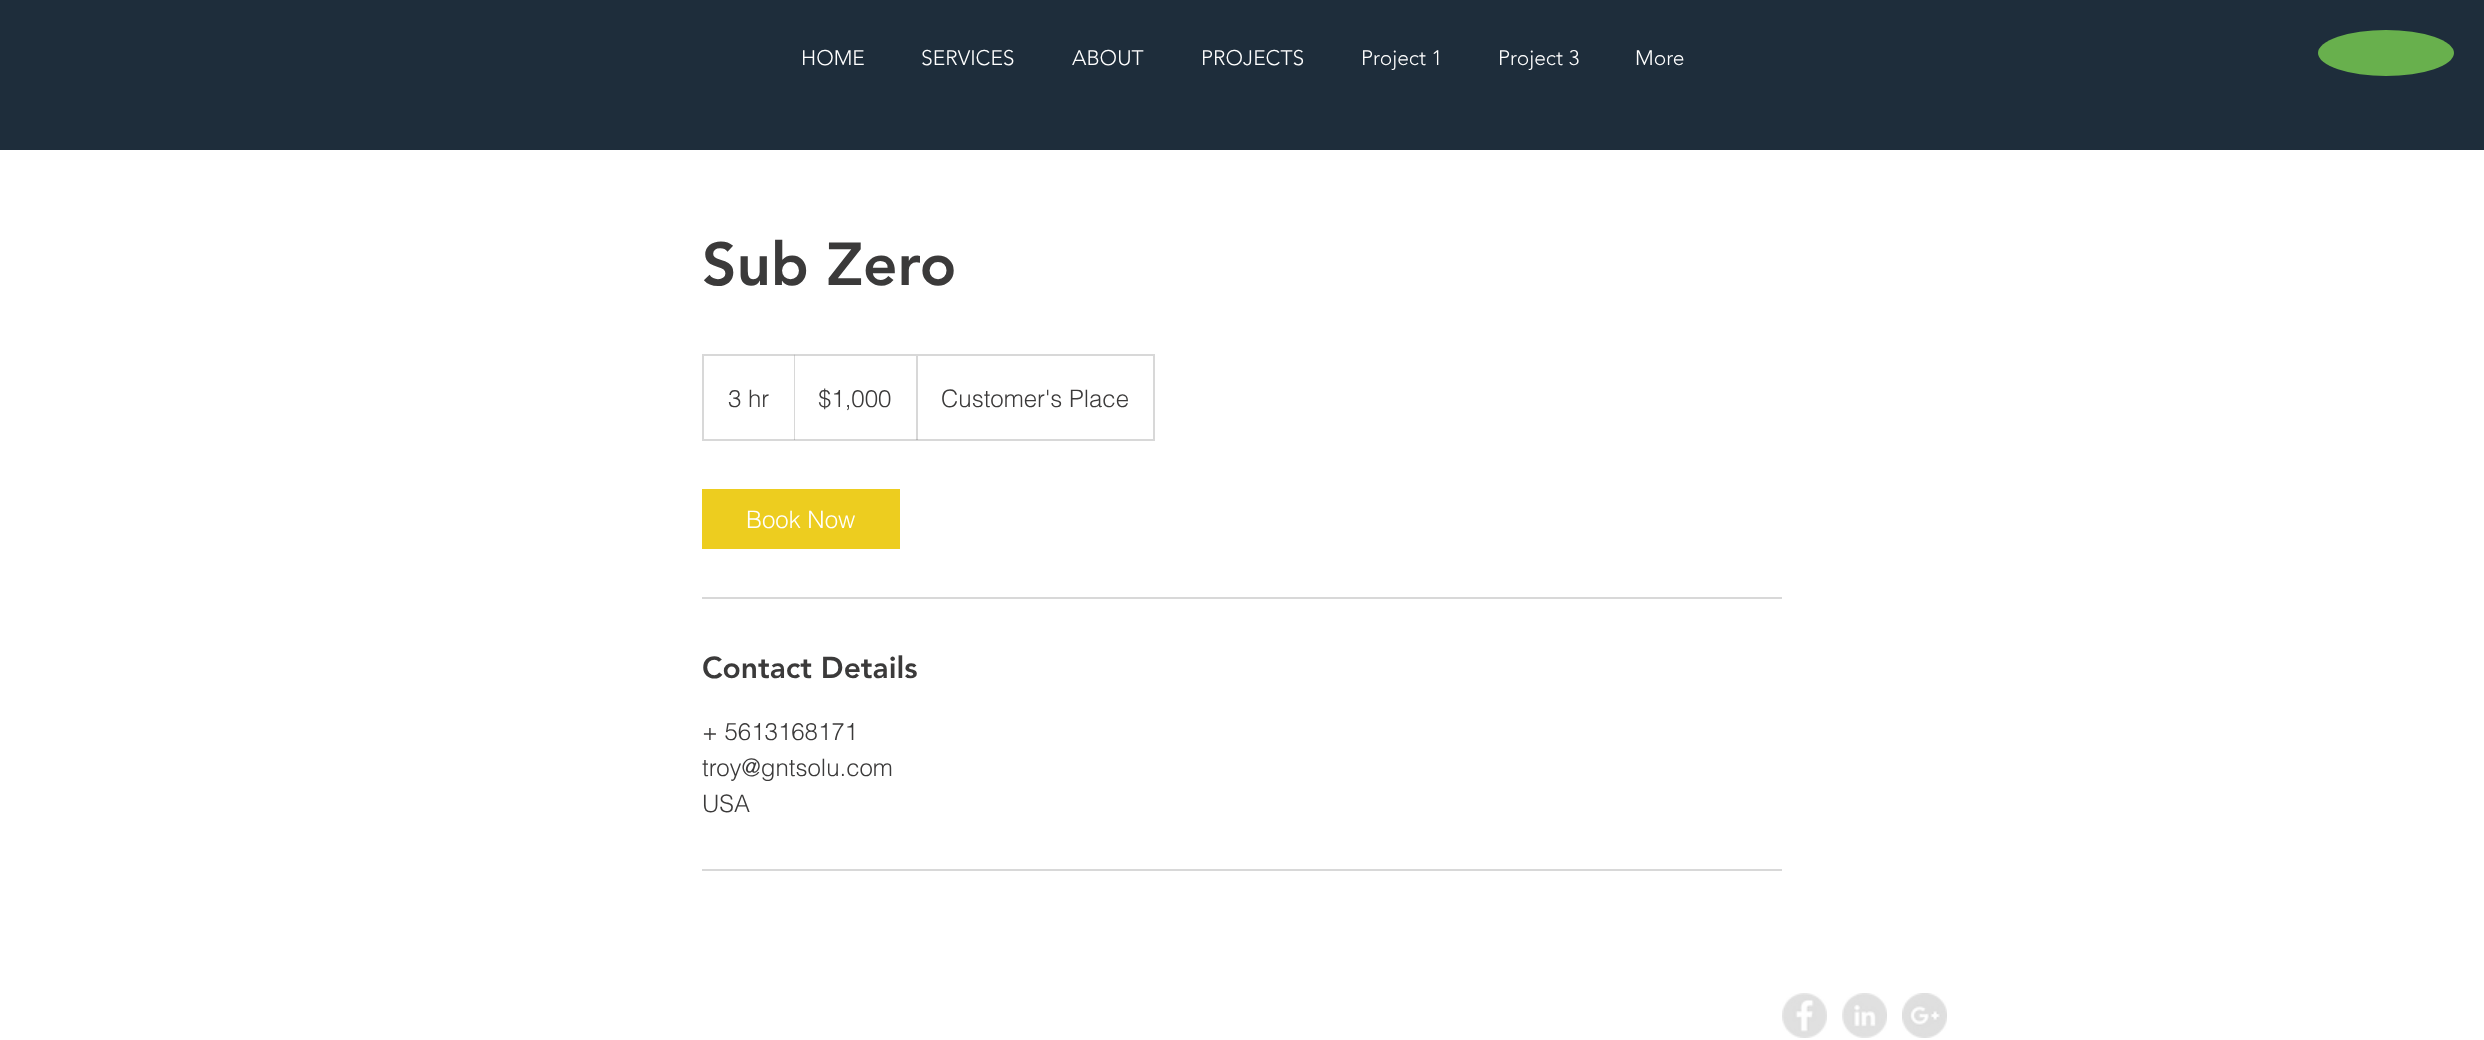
<!DOCTYPE html>
<meta charset="utf-8">
<style>body { margin: 0 } canvas { display: block }</style>
<canvas id="canvas" width="2484" height="1040"></canvas>
<script type="module">
  const canvas = document.getElementById("canvas");
  const g = canvas.getContext("2d");
  g.miterLimit = 4;
  g.fontKerning = "normal";
  function drawText(s, x, y, [font, color]) {
    g.font = font;
    g.fillStyle = color;
    g.fillText(s, x, y);
  }
  function fillBox(x, y, w, h, color) {
    g.fillStyle = color;
    g.fillRect(x, y, w, h);
  }
  async function drawPicture(src, x, y, w, h) {
    const img = new Image();
    img.src = src;
    await img.decode();
    g.drawImage(img, x, y, w, h);
  }

  const s1 = ["300 21px 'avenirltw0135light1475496'", "#FFFFFF"];
  const s2 = ["900 60px 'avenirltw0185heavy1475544'", "#3B3A3A"];
  const s3 = ["300 24px helvetica", "#3B3A3A"];
  const s4 = ["300 24px helvetica", "#FFFFFF"];
  const s5 = ["900 30px 'avenirltw0185heavy1475544'", "#3B3A3A"];

  fillBox(0, 0, 2484, 1040, "#FFFFFF");
  fillBox(0, 0, 2484, 150, "#1E2D3B");
  drawText("HOME", 801, 65, s1);
  drawText("SERVICES", 921, 65, s1);
  drawText("ABOUT", 1072, 65, s1);
  drawText("PROJECTS", 1201, 65, s1);
  drawText("Project 1", 1361, 65, s1);
  drawText("Project 3", 1498, 65, s1);
  drawText("More", 1635, 65, s1);
  g.fillStyle = "#68B04D";
  g.beginPath();
  g.ellipse(2386, 53, 68, 23, 0, 0, Math.PI * 2);
  g.fill();
  drawText("Sub Zero", 702, 285, s2);
  g.strokeStyle = "#D8D8D8";
  g.lineWidth = 2;
  g.strokeRect(703, 355, 451, 85);
  drawText("3 hr", 728, 407, s3);
  g.fillStyle = "rgba(59, 58, 58, 0.2)";
  g.beginPath();
  g.moveTo(794, 440);
  g.lineTo(794, 354);
  g.lineTo(795, 356);
  g.lineTo(795, 440);
  g.closePath();
  g.fill();
  drawText("$1,000", 818, 407, s3);
  g.save();
  g.beginPath();
  g.rect(704, 356, 450, 84);
  g.clip();
  g.fillStyle = "rgba(59, 58, 58, 0.2)";
  g.beginPath();
  g.moveTo(916, 440);
  g.lineTo(916, 354);
  g.lineTo(918, 356);
  g.lineTo(918, 440);
  g.closePath();
  g.fill();
  g.restore();
  drawText("Customer's Place", 941, 407, s3);
  fillBox(702, 489, 198, 60, "#EDCD1F");
  drawText("Book Now", 746, 528, s4);
  fillBox(702, 597, 1080, 2, "#D8D8D8");
  drawText("Contact Details", 702, 678, s5);
  drawText("+ 5613168171", 702, 740, s3);
  drawText("troy@gntsolu.com", 702, 776, s3);
  drawText("USA", 702, 812, s3);
  fillBox(702, 869, 1080, 2, "#D8D8D8");
  await drawPicture("pic1.png", 1782, 993, 45, 45);
  await drawPicture("pic2.png", 1842, 993, 45, 45);
  await drawPicture("pic3.png", 1902, 993, 45, 45);
</script>
